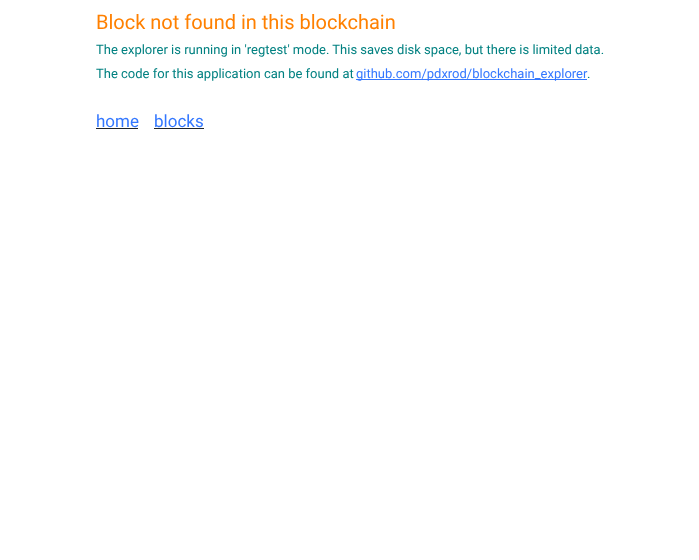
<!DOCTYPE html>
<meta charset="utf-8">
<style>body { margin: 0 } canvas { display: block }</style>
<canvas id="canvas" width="699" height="560"></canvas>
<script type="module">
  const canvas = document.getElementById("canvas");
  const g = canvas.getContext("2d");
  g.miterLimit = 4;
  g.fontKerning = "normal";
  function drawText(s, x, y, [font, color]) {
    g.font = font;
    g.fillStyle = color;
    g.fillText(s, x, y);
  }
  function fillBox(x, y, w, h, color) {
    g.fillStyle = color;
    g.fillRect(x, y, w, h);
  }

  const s1 = ["20px Roboto", "#FF8000"];
  const s2 = ["13px Roboto", "#008080"];
  const s3 = ["13px Roboto", "#3377FF"];
  const s4 = ["17px Roboto", "#3377FF"];

  fillBox(0, 0, 699, 560, "#FFFFFF");
  drawText("Block not found in this blockchain", 96, 29, s1);
  drawText("The explorer is running in 'regtest' mode. This saves disk space, but there is limited data.", 96, 54, s2);
  drawText("The code for this application can be found at", 96, 78, s2);
  fillBox(356, 79, 231, 1, "#3377FF");
  drawText("github.com/pdxrod/blockchain_explorer", 356, 78, s3);
  drawText(".", 587, 78, s2);
  drawText("home", 96, 127, s4);
  fillBox(96, 128, 42, 1, "#212529");
  drawText("blocks", 154, 127, s4);
  fillBox(154, 128, 50, 1, "#212529");
</script>
